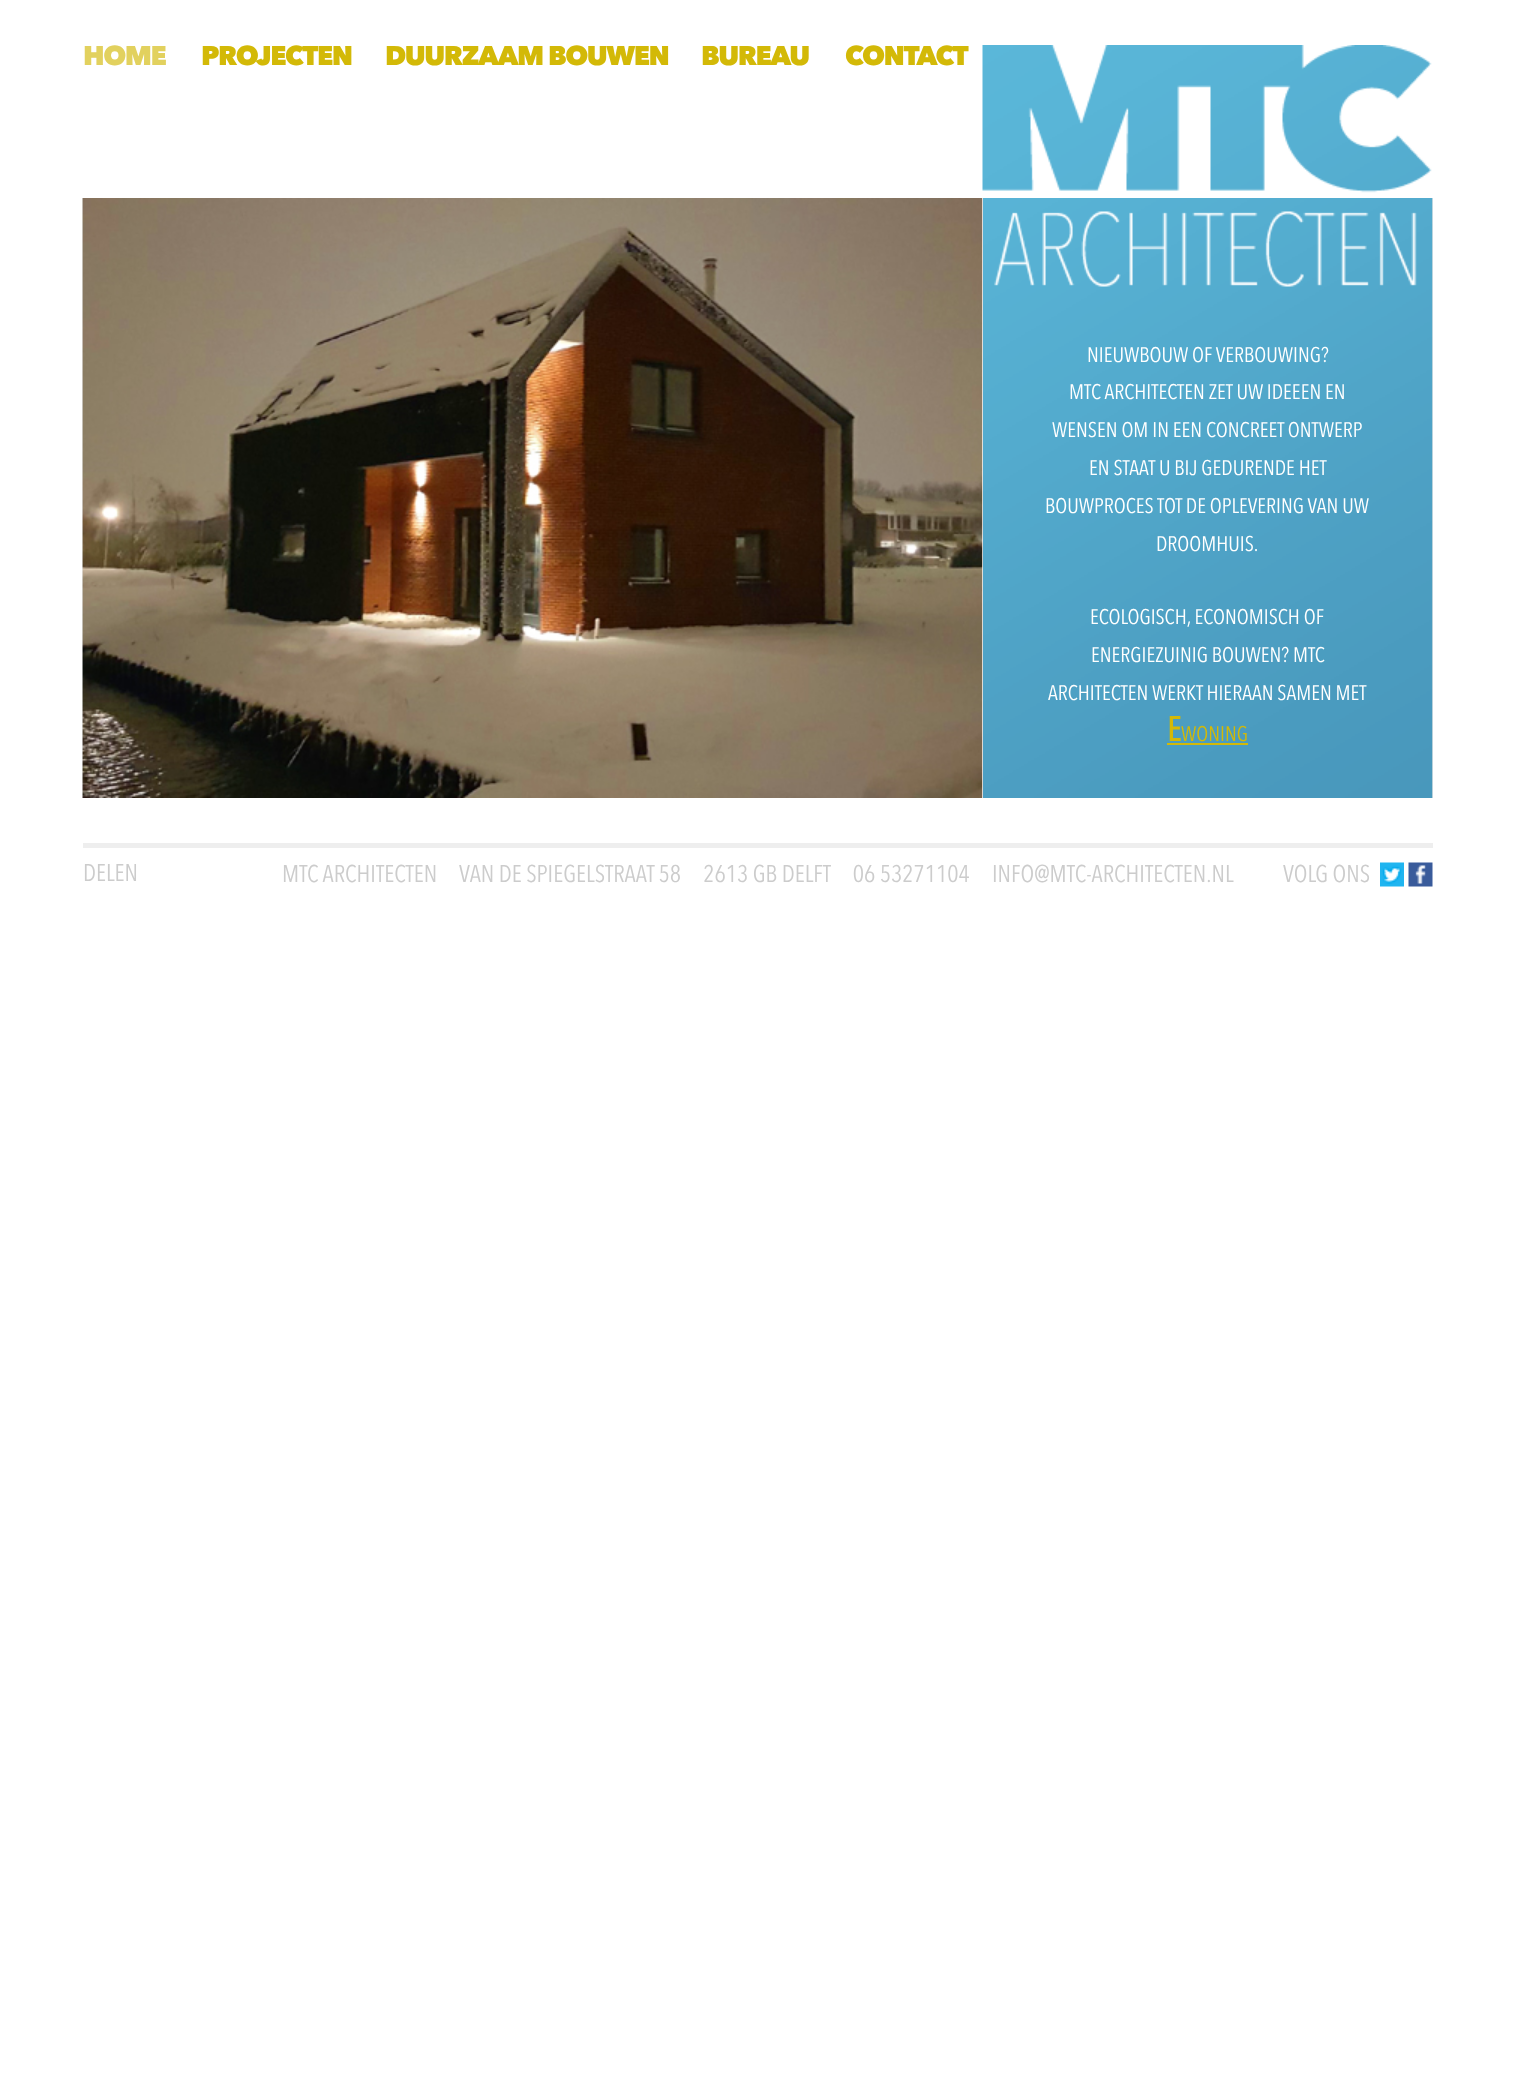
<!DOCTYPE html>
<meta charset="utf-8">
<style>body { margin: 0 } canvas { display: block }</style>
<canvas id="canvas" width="1514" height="2089"></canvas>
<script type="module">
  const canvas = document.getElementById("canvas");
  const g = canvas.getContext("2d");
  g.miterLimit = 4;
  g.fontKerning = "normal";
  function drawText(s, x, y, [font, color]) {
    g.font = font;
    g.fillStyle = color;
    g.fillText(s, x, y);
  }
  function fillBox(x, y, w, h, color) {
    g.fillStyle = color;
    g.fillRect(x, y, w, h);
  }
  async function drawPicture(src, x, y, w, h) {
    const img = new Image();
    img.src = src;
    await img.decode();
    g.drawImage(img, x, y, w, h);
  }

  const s1 = ["900 27px Avenir Next", "#E2D15E"];
  const s2 = ["900 27px Avenir Next", "#D3B907"];
  const s3 = ["21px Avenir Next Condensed", "#FFFFFF"];
  const s4 = ["bold 34px Avenir Next Condensed", "#D3B907"];
  const s5 = ["21px Avenir Next Condensed", "#D3B907"];
  const s6 = ["24px Avenir Next Condensed", "#CCCCCC"];

  fillBox(0, 0, 1514, 2089, "#FFFFFF");
  g.letterSpacing = "-1.5px";
  drawText("HOME", 83, 65, s1);
  drawText("PROJECTEN", 201, 65, s2);
  drawText("DUURZAAM BOUWEN", 385, 65, s2);
  drawText("BUREAU", 701, 65, s2);
  drawText("CONTACT", 845, 65, s2);
  await drawPicture("pic1.png", 982, 45, 450, 148);
  fillBox(1432, 198, 1, 600, "#DEE3E5");
  await drawPicture("pic2.png", 82, 198, 1, 600);
  await drawPicture("pic3.png", 82, 198, 1, 600);
  await drawPicture("pic4.png", 82, 198, 901, 600);
  await drawPicture("pic5.png", 983, 198, 450, 600);
  g.letterSpacing = "0px";
  drawText("NIEUWBOUW OF VERBOUWING?", 1087, 362, s3);
  drawText("MTC ARCHITECTEN ZET UW IDEEEN EN", 1069, 399, s3);
  drawText("WENSEN OM IN EEN CONCREET ONTWERP", 1052, 437, s3);
  drawText("EN STAAT U BIJ GEDURENDE HET", 1089, 475, s3);
  drawText("BOUWPROCES TOT DE OPLEVERING VAN UW", 1045, 513, s3);
  drawText("DROOMHUIS.", 1156, 551, s3);
  drawText("ECOLOGISCH, ECONOMISCH OF", 1090, 624, s3);
  drawText("ENERGIEZUINIG BOUWEN? MTC", 1091, 662, s3);
  drawText("ARCHITECTEN WERKT HIERAAN SAMEN MET", 1048, 700, s3);
  drawText("E", 1167, 741, s4);
  drawText("WONING", 1181, 741, s5);
  fillBox(1167, 743, 81, 2, "#D3B907");
  fillBox(83, 843, 1350, 5, "#EEEEEE");
  drawText("DELEN", 83, 881, s6);
  drawText("MTC ARCHITECTEN     VAN DE SPIEGELSTRAAT 58     2613 GB DELFT     06 53271104", 282, 882, s6);
  drawText("INFO@MTC-ARCHITECTEN.NL", 992, 882, s6);
  drawText("VOLG ONS", 1283, 882, s6);
  await drawPicture("pic6.png", 1380, 862, 24, 25);
  await drawPicture("pic7.png", 1408, 862, 25, 25);
</script>
